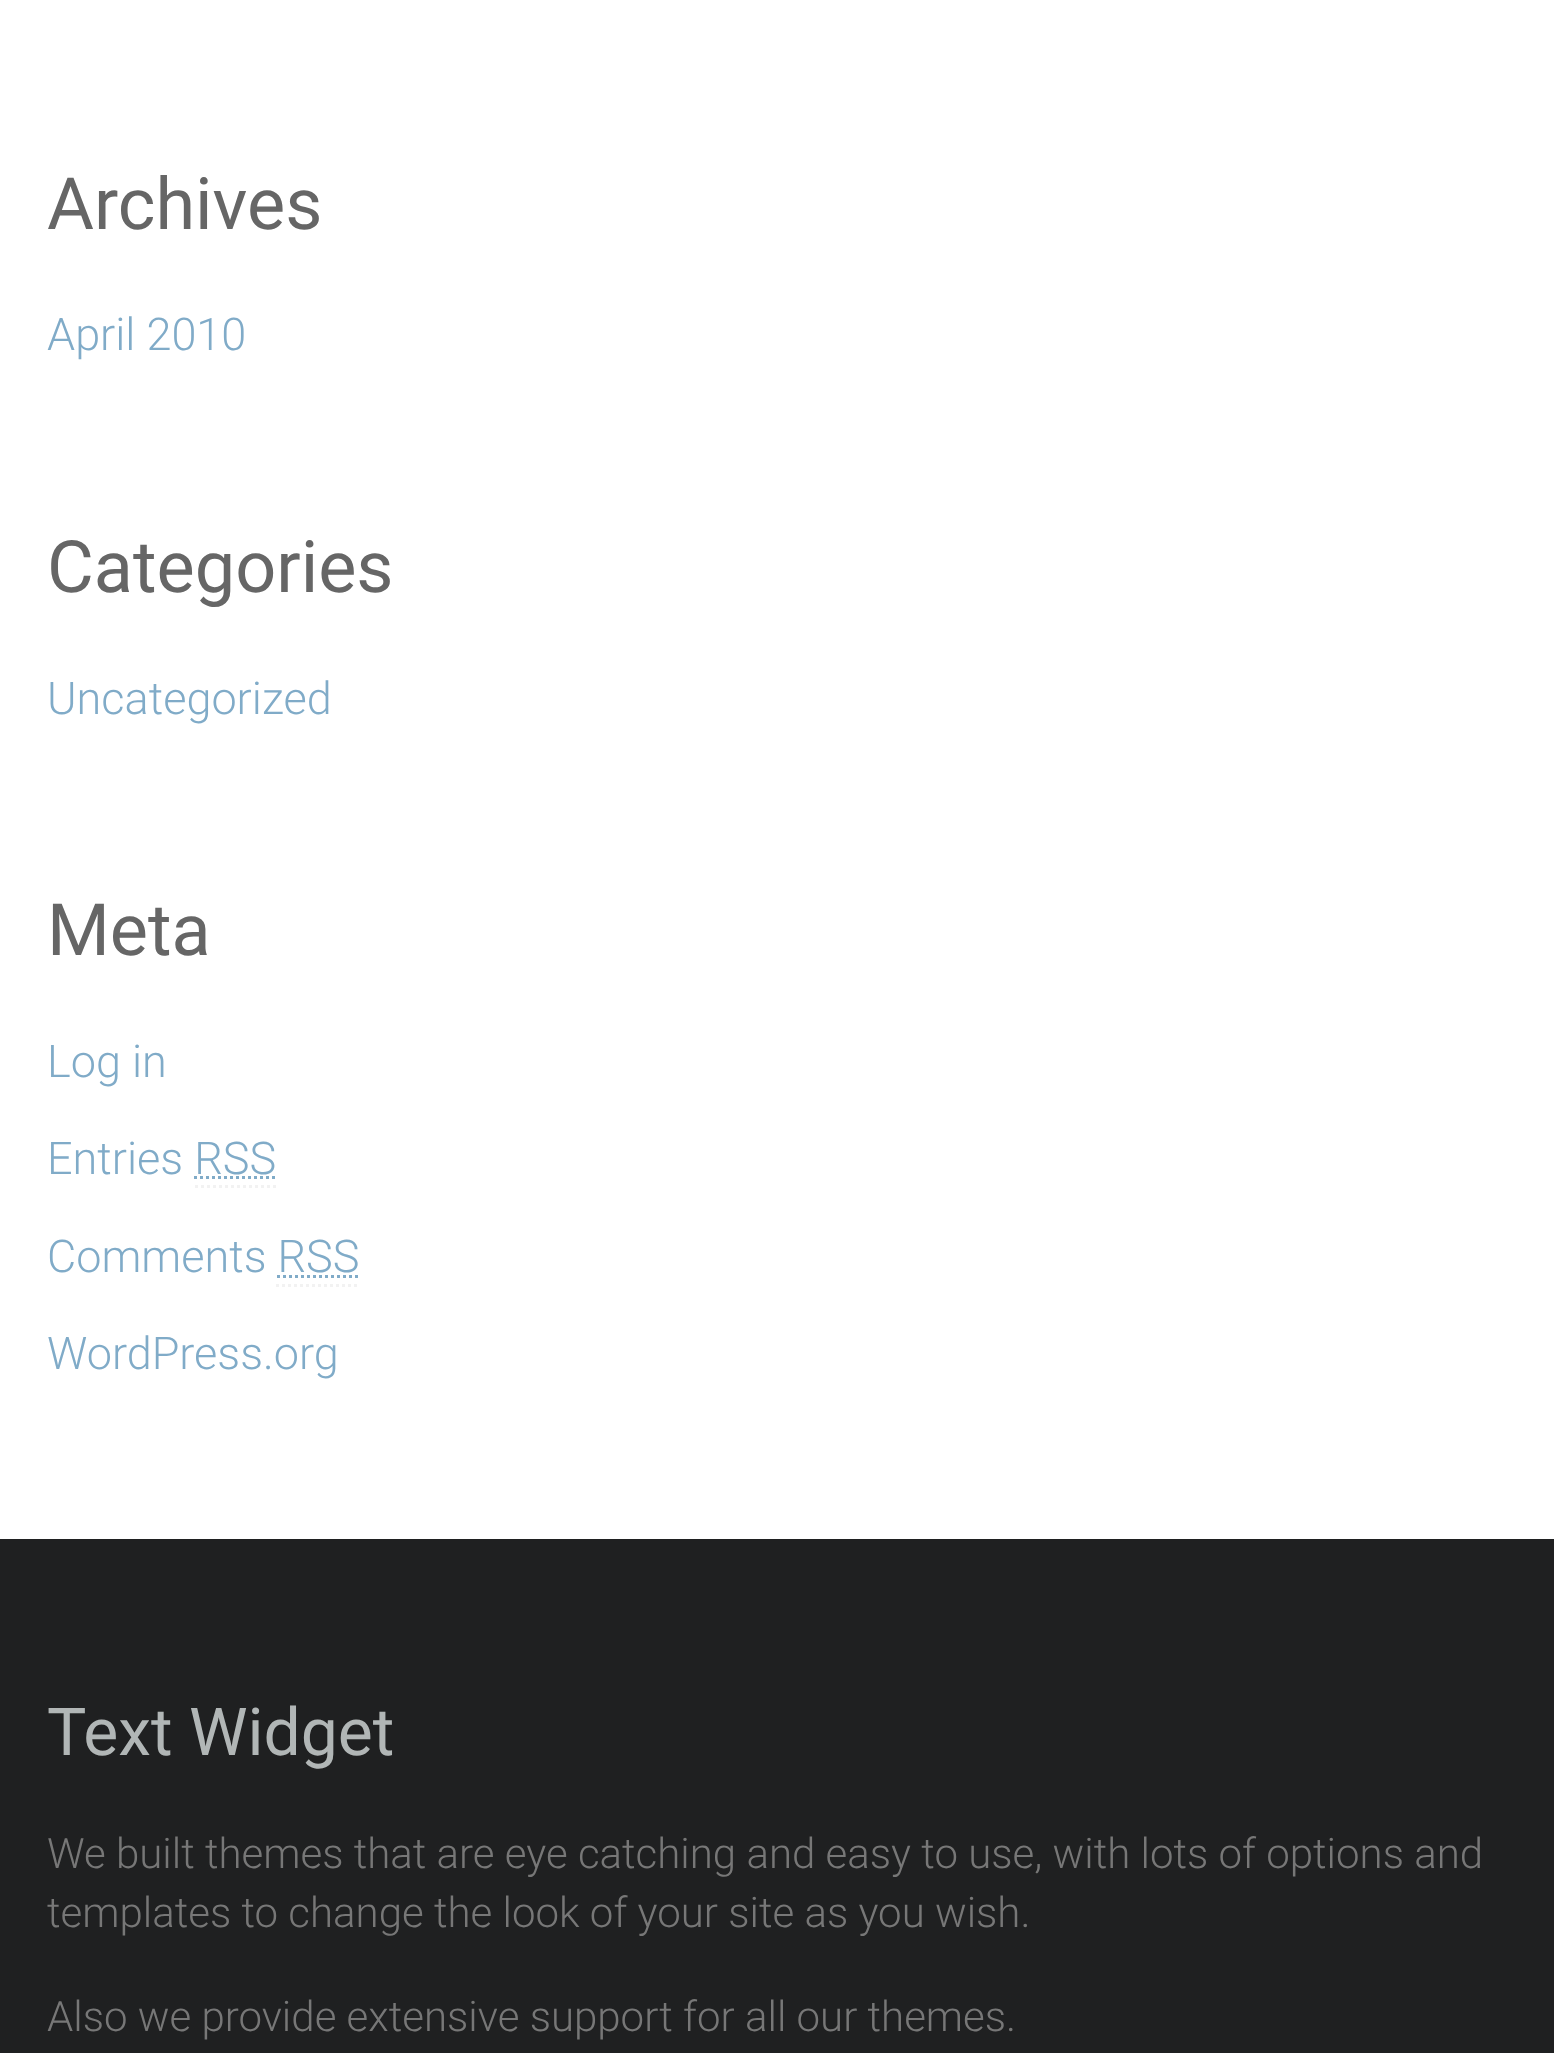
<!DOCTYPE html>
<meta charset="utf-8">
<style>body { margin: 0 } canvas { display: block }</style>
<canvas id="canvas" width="1554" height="2053"></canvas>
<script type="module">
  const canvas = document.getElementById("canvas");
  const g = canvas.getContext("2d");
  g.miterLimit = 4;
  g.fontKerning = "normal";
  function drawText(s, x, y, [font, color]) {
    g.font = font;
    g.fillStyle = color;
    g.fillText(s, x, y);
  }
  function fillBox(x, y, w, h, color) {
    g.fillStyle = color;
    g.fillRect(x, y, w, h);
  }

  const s1 = ["72px Roboto", "#666666"];
  const s2 = ["300 45px Roboto", "#80ABC8"];
  const s3 = ["66px Roboto", "#B1B6B6"];
  const s4 = ["300 42px Roboto", "#777777"];

  fillBox(0, 0, 1554, 2053, "#FFFFFF");
  drawText("Archives", 47, 229, s1);
  drawText("April 2010", 47, 350, s2);
  drawText("Categories", 47, 592, s1);
  drawText("Uncategorized", 47, 714, s2);
  drawText("Meta", 47, 955, s1);
  drawText("Log in", 47, 1077, s2);
  drawText("Entries RSS", 47, 1174, s2);
  g.beginPath();
  g.moveTo(194, 1177.5);
  g.lineTo(275.5, 1177.5);
  g.strokeStyle = "#80ABC8";
  g.lineWidth = 3;
  g.setLineDash([3, 3]);
  g.stroke();
  g.beginPath();
  g.moveTo(195, 1186.5);
  g.lineTo(276, 1186.5);
  g.strokeStyle = "#F2F2F2";
  g.stroke();
  drawText("Comments RSS", 47, 1272, s2);
  g.beginPath();
  g.moveTo(277, 1276.5);
  g.lineTo(359, 1276.5);
  g.strokeStyle = "#80ABC8";
  g.stroke();
  g.beginPath();
  g.moveTo(276, 1285.5);
  g.lineTo(360, 1285.5);
  g.strokeStyle = "#F2F2F2";
  g.stroke();
  drawText("WordPress.org", 47, 1369, s2);
  fillBox(0, 1539, 1554, 514, "#1F2021");
  drawText("Text Widget", 47, 1755, s3);
  drawText("We built themes that are eye catching and easy to use, with lots of options and", 47, 1868, s4);
  drawText("templates to change the look of your site as you wish.", 47, 1927, s4);
  drawText("Also we provide extensive support for all our themes.", 47, 2031, s4);
</script>
